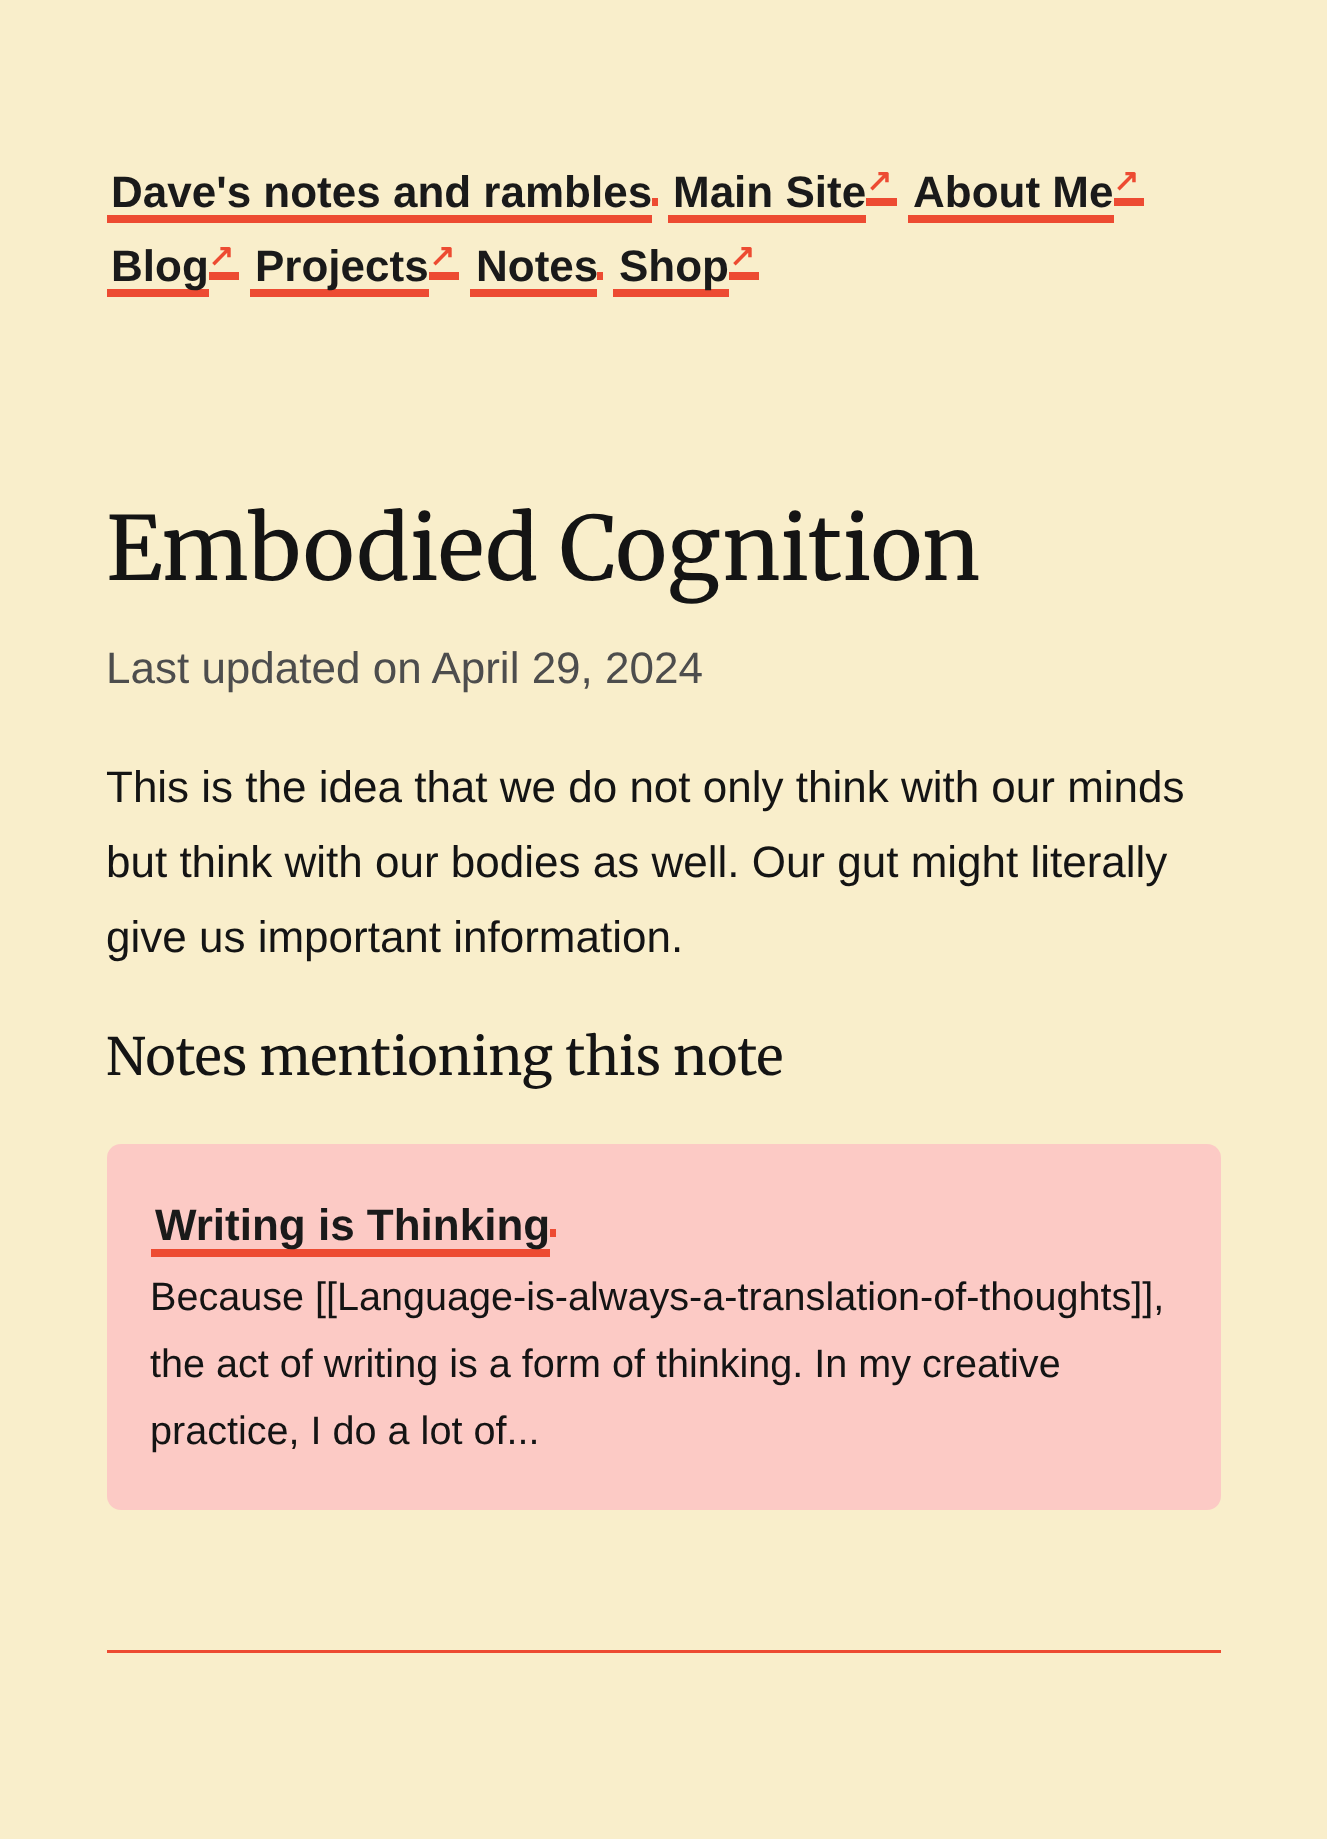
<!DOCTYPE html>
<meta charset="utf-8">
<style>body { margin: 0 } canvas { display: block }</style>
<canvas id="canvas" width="1327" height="1839"></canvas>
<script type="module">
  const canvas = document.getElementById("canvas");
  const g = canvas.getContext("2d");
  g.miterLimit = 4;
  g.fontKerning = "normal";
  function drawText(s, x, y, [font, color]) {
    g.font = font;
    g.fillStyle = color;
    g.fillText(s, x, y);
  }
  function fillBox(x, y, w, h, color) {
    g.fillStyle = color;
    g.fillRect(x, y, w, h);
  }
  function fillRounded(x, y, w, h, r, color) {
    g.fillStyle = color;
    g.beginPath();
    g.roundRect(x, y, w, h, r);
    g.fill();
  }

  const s1 = ["bold 44px Liberation Sans", "#1A1A1A"];
  const s2 = ["bold 31px DejaVu Sans", "#ED4B32"];
  const s3 = ["300 88px Merriweather", "#141414"];
  const s4 = ["44px Liberation Sans", "#4D4D4D"];
  const s5 = ["44px Liberation Sans", "#141414"];
  const s6 = ["300 51.5px Merriweather", "#141414"];
  const s7 = ["39.6px Liberation Sans", "#141414"];

  fillBox(0, 0, 1327, 1839, "#F9EECB");
  drawText("Dave's notes and rambles", 111, 207, s1);
  fillBox(107, 215, 545, 8, "#ED4B32");
  fillBox(652, 198, 6, 8, "#ED4B32");
  drawText("Main Site", 673, 207, s1);
  fillBox(668, 215, 198, 8, "#ED4B32");
  fillBox(866, 198, 31, 8, "#ED4B32");
  drawText("↗", 866, 191, s2);
  drawText("About Me", 913, 207, s1);
  fillBox(908, 215, 206, 8, "#ED4B32");
  fillBox(1114, 198, 30, 8, "#ED4B32");
  drawText("↗", 1113, 191, s2);
  fillBox(107, 289, 102, 8, "#ED4B32");
  drawText("Blog", 111, 281, s1);
  fillBox(209, 272, 30, 8, "#ED4B32");
  drawText("↗", 208, 266, s2);
  fillBox(250, 289, 179, 8, "#ED4B32");
  drawText("Projects", 255, 281, s1);
  fillBox(429, 272, 30, 8, "#ED4B32");
  drawText("↗", 429, 266, s2);
  drawText("Notes", 476, 281, s1);
  fillBox(470, 289, 127, 8, "#ED4B32");
  fillBox(597, 272, 6, 8, "#ED4B32");
  fillBox(613, 289, 116, 8, "#ED4B32");
  drawText("Shop", 619, 281, s1);
  fillBox(729, 272, 30, 8, "#ED4B32");
  drawText("↗", 729, 266, s2);
  drawText("Embodied Cognition", 106, 580, s3);
  drawText("Last updated on April 29, 2024", 106, 683, s4);
  drawText("This is the idea that we do not only think with our minds", 106, 802, s5);
  drawText("but think with our bodies as well. Our gut might literally", 106, 877, s5);
  drawText("give us important information.", 106, 952, s5);
  drawText("Notes mentioning this note", 106, 1075, s6);
  fillRounded(107, 1144, 1114, 366, 14, "#FCCAC5");
  fillBox(151, 1249, 399, 8, "#ED4B32");
  drawText("Writing is Thinking", 155, 1240, s1);
  fillBox(550, 1229, 6, 8, "#ED4B32");
  drawText("Because [[Language-is-always-a-translation-of-thoughts]],", 150, 1310, s7);
  drawText("the act of writing is a form of thinking. In my creative", 150, 1377, s7);
  drawText("practice, I do a lot of...", 150, 1444, s7);
  fillBox(107, 1650, 1114, 3, "#ED4B32");
</script>
